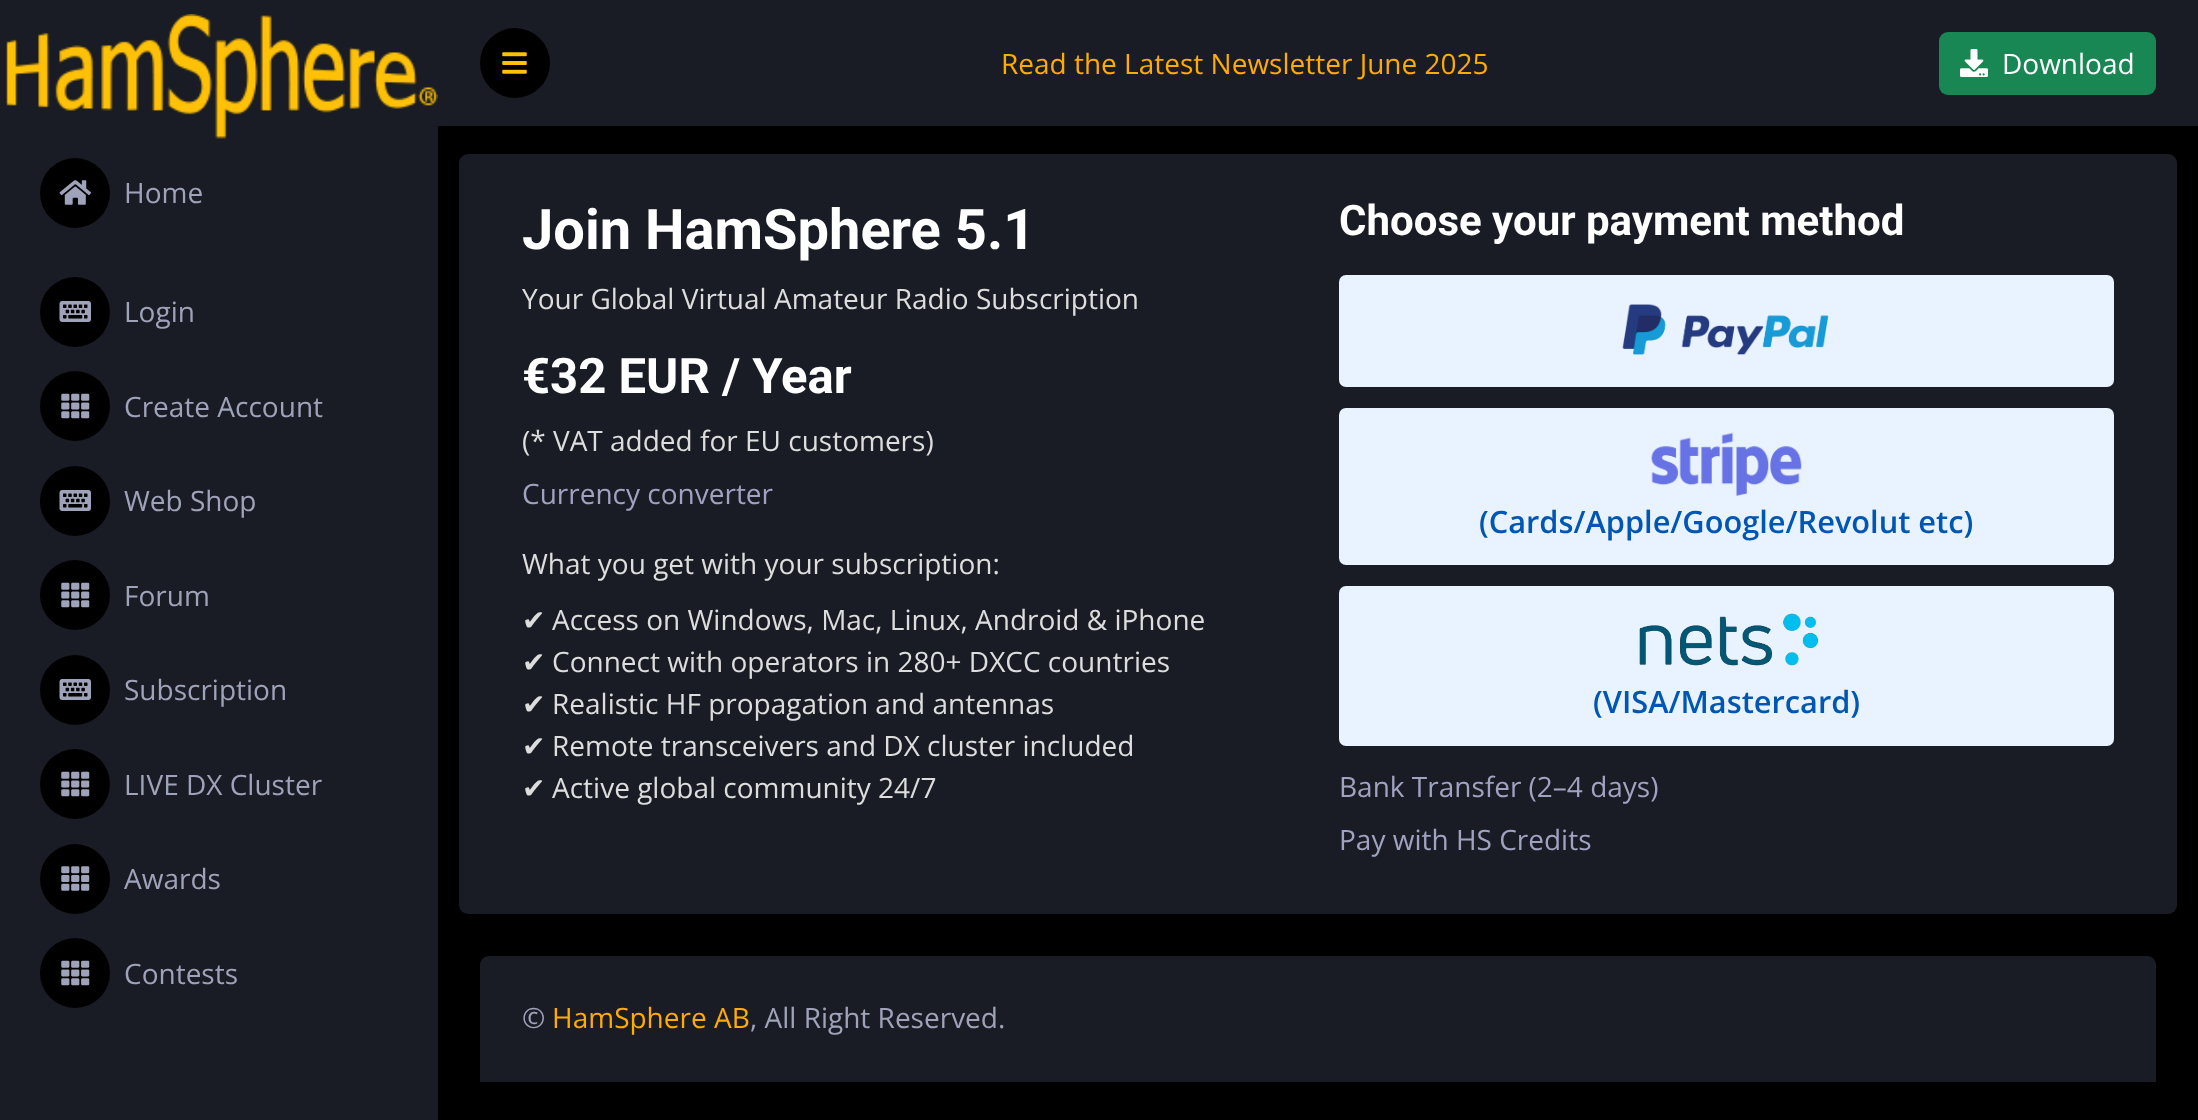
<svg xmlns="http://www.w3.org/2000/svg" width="2198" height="1120">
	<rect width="100%" height="100%" fill="#000000" />
	<rect x="0" y="0" width="438" height="1120" fill="#191C24" />
	<image x="6" y="14" width="432" height="125" href="assets/img1.png" />
	<circle cx="75" cy="193" r="35" fill="#000000" />
	<image x="59" y="180" width="32" height="25" href="assets/img2.png" />
	<text x="124" y="203" font-family="Open Sans" font-size="28" fill="#9FA3B9">Home</text>
	<circle cx="75" cy="312" r="35" fill="#000000" />
	<image x="59" y="301" width="32" height="21" href="assets/img3.png" />
	<text x="124" y="322" font-family="Open Sans" font-size="28" fill="#9FA3B9">Login</text>
	<circle cx="75" cy="406" r="35" fill="#000000" />
	<image x="61" y="393" width="29" height="26" href="assets/img4.png" />
	<text x="124" y="417" font-family="Open Sans" font-size="28" fill="#9FA3B9">Create Account</text>
	<circle cx="75" cy="501" r="35" fill="#000000" />
	<image x="59" y="490" width="32" height="21" href="assets/img3.png" />
	<text x="124" y="511" font-family="Open Sans" font-size="28" fill="#9FA3B9">Web Shop</text>
	<circle cx="75" cy="595" r="35" fill="#000000" />
	<image x="61" y="582" width="29" height="26" href="assets/img4.png" />
	<text x="124" y="606" font-family="Open Sans" font-size="28" fill="#9FA3B9">Forum</text>
	<circle cx="75" cy="690" r="35" fill="#000000" />
	<image x="59" y="679" width="32" height="21" href="assets/img3.png" />
	<text x="124" y="700" font-family="Open Sans" font-size="28" fill="#9FA3B9">Subscription</text>
	<circle cx="75" cy="784" r="35" fill="#000000" />
	<image x="61" y="771" width="29" height="26" href="assets/img4.png" />
	<text x="124" y="795" font-family="Open Sans" font-size="28" fill="#9FA3B9">LIVE DX Cluster</text>
	<circle cx="75" cy="879" r="35" fill="#000000" />
	<image x="61" y="866" width="29" height="25" href="assets/img5.png" />
	<text x="124" y="889" font-family="Open Sans" font-size="28" fill="#9FA3B9">Awards</text>
	<circle cx="75" cy="973" r="35" fill="#000000" />
	<image x="61" y="960" width="29" height="26" href="assets/img4.png" />
	<text x="124" y="984" font-family="Open Sans" font-size="28" fill="#9FA3B9">Contests</text>
	<rect x="438" y="0" width="1760" height="126" fill="#191C24" />
	<circle cx="515" cy="63" r="35" fill="#000000" />
	<image x="502" y="52" width="25" height="22" href="assets/img6.png" />
	<text x="1001" y="74" font-family="Open Sans" font-size="28" fill="#FFAB00">Read the Latest Newsletter June 2025</text>
	<rect x="1939" y="32" width="217" height="63" rx="9" fill="#198754" />
	<image x="1960" y="49" width="28" height="28" href="assets/img7.png" />
	<text x="2002" y="74" font-family="Open Sans" font-size="28" fill="#FFFFFF">Download</text>
	<rect x="459" y="154" width="1718" height="760" rx="9" fill="#191C24" />
	<text x="522" y="249" font-family="Roboto" font-size="56" font-weight="700" fill="#FFFFFF">Join HamSphere 5.1</text>
	<text x="522" y="309" font-family="Open Sans" font-size="28" fill="#DDDDDD">Your Global Virtual Amateur Radio Subscription</text>
	<text x="522" y="393" font-family="Roboto" font-size="49" font-weight="700" fill="#FFFFFF">€32 EUR / Year</text>
	<text x="522" y="451" font-family="Open Sans" font-size="28" fill="#DDDDDD">(* VAT added for EU customers)</text>
	<text x="522" y="504" font-family="Open Sans" font-size="28" fill="#A0A3C0">Currency converter</text>
	<text x="522" y="574" font-family="Open Sans" font-size="28" fill="#DDDDDD">What you get with your subscription:</text>
	<text x="522" y="630" font-family="DejaVu Sans" font-size="28" fill="#DDDDDD">✔</text>
	<text x="552" y="630" font-family="Open Sans" font-size="28" fill="#DDDDDD">Access on Windows, Mac, Linux, Android &amp; iPhone</text>
	<text x="522" y="672" font-family="DejaVu Sans" font-size="28" fill="#DDDDDD">✔</text>
	<text x="552" y="672" font-family="Open Sans" font-size="28" fill="#DDDDDD">Connect with operators in 280+ DXCC countries</text>
	<text x="522" y="714" font-family="DejaVu Sans" font-size="28" fill="#DDDDDD">✔</text>
	<text x="552" y="714" font-family="Open Sans" font-size="28" fill="#DDDDDD">Realistic HF propagation and antennas</text>
	<text x="522" y="756" font-family="DejaVu Sans" font-size="28" fill="#DDDDDD">✔</text>
	<text x="552" y="756" font-family="Open Sans" font-size="28" fill="#DDDDDD">Remote transceivers and DX cluster included</text>
	<text x="522" y="798" font-family="DejaVu Sans" font-size="28" fill="#DDDDDD">✔</text>
	<text x="552" y="798" font-family="Open Sans" font-size="28" fill="#DDDDDD">Active global community 24/7</text>
	<text x="1339" y="235" font-family="Roboto" font-size="42" font-weight="700" fill="#FFFFFF">Choose your payment method</text>
	<rect x="1339" y="275" width="775" height="112" rx="7" fill="#E9F2FF" />
	<image x="1622" y="304" width="207" height="51" href="assets/img8.png" />
	<rect x="1339" y="408" width="775" height="157" rx="7" fill="#E9F2FF" />
	<image x="1651" y="432" width="151" height="64" href="assets/img9.png" />
	<text x="1479" y="533" font-family="Open Sans" font-size="30.75" font-weight="600" fill="#0056B3">(Cards/Apple/Google/Revolut etc)</text>
	<rect x="1339" y="586" width="775" height="160" rx="7" fill="#E9F2FF" />
	<image x="1639" y="613" width="180" height="53" href="assets/img10.png" />
	<text x="1593" y="713" font-family="Open Sans" font-size="30.75" font-weight="600" fill="#0056B3">(VISA/Mastercard)</text>
	<g font-family="Open Sans" font-size="28" fill="#A0A3C0">
		<text x="1339" y="797">Bank Transfer (2–4 days)</text>
		<text x="1339" y="850">Pay with HS Credits</text>
	</g>
	<path d="M489 956H2147C2152 956 2156 960 2156 965V1082H480V965C480 960 484 956 489 956Z" fill="#191C24" />
	<text x="522" y="1028" font-family="Open Sans" font-size="28" fill="#9FA3B9">©</text>
	<text x="552" y="1028" font-family="Open Sans" font-size="28" fill="#FFAB00">HamSphere AB</text>
	<text x="750" y="1028" font-family="Open Sans" font-size="28" fill="#9FA3B9">, All Right Reserved.</text>
</svg>
